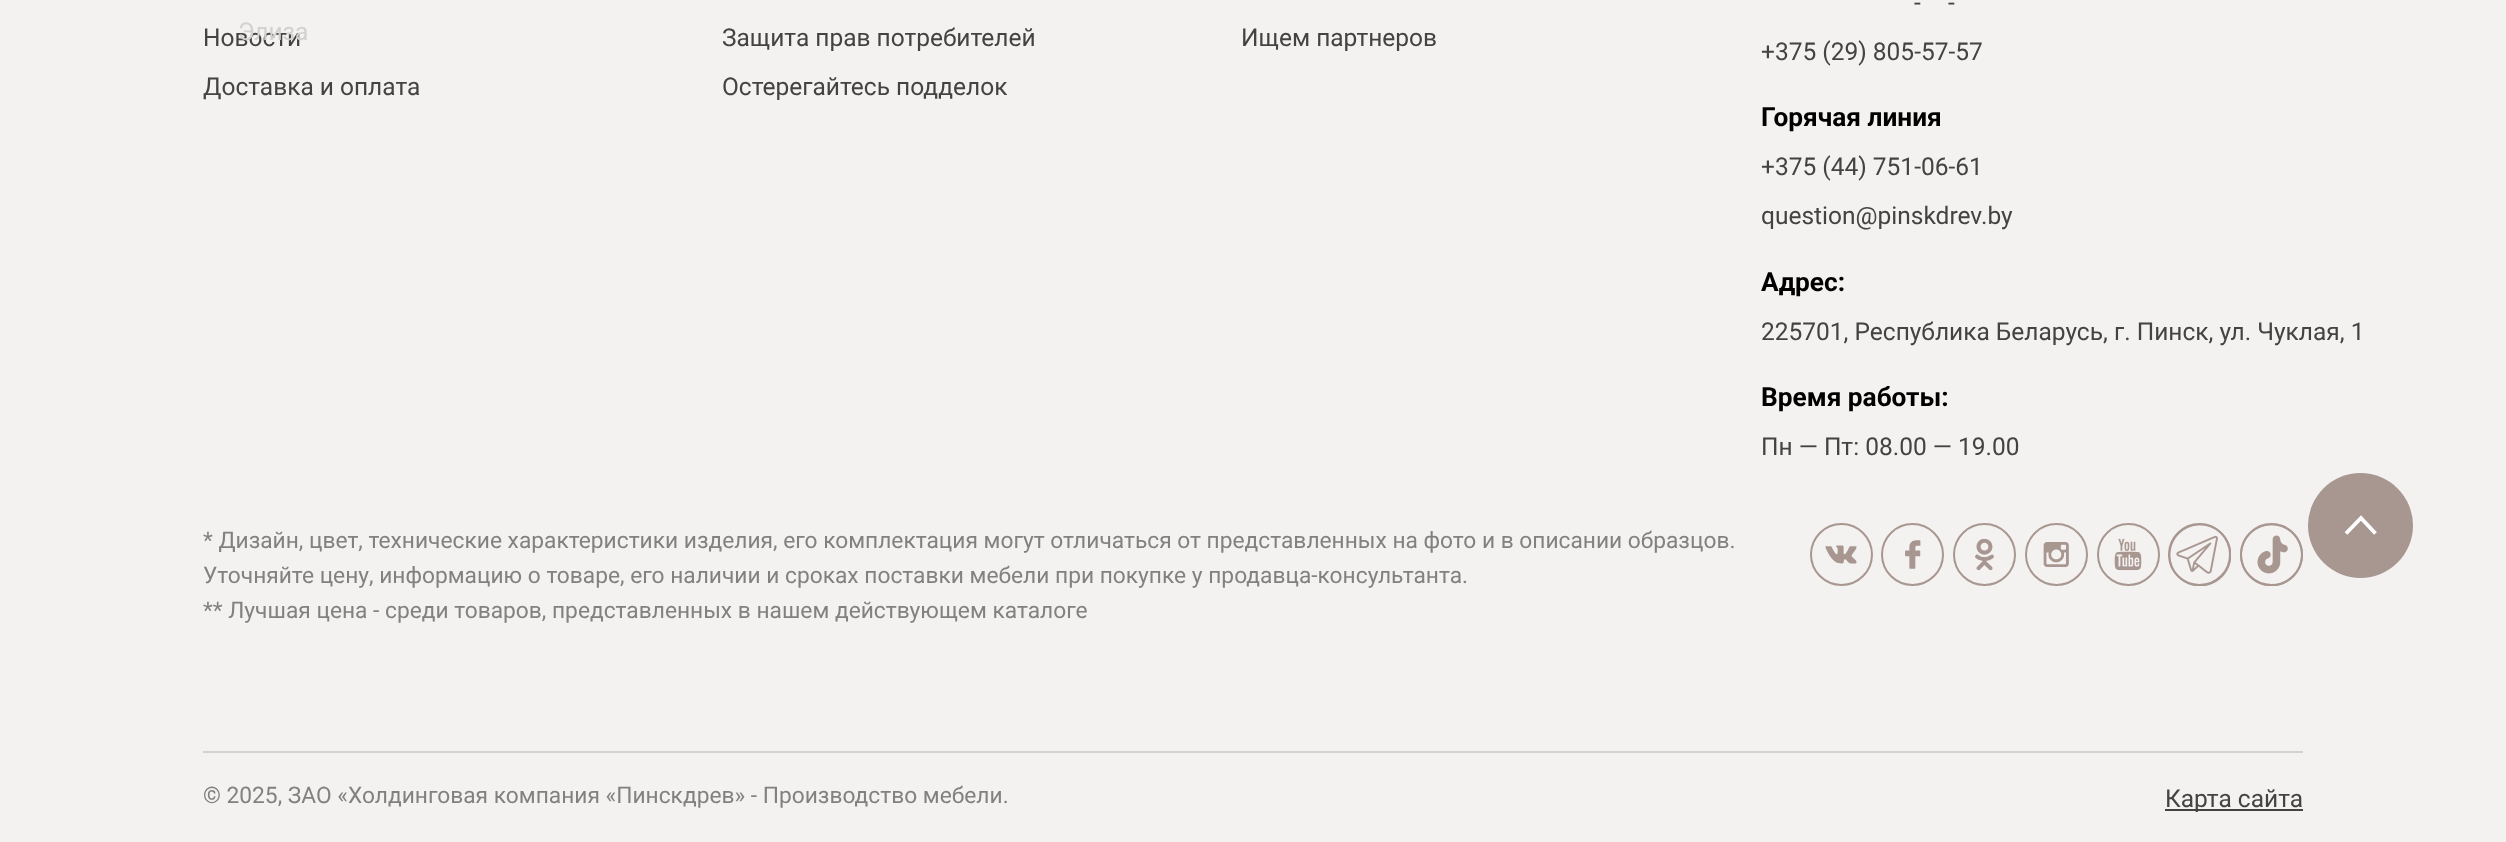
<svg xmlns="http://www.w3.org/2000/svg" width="2506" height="842">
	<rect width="100%" height="100%" fill="#F4F2F0" />
	<g font-family="Roboto" font-size="24.5" fill="#434343">
		<text x="203" y="46">Новости</text>
		<text x="203" y="95">Доставка и оплата</text>
		<text x="722" y="46">Защита прав потребителей</text>
		<text x="722" y="95">Остерегайтесь подделок</text>
		<text x="1241" y="46">Ищем партнеров</text>
		<text x="1914" y="11">-</text>
		<text x="1948" y="11">-</text>
		<text x="1761" y="60">+375 (29) 805-57-57</text>
	</g>
	<text x="1761" y="126" font-family="Roboto" font-size="26.25" font-weight="700" fill="#000000">Горячая линия</text>
	<g font-family="Roboto" font-size="24.5" fill="#434343">
		<text x="1761" y="175">+375 (44) 751-06-61</text>
		<text x="1761" y="224">question@pinskdrev.by</text>
	</g>
	<text x="1761" y="291" font-family="Roboto" font-size="26.25" font-weight="700" fill="#000000">Адрес:</text>
	<text x="1761" y="340" font-family="Roboto" font-size="24.5" fill="#434343">225701, Республика Беларусь, г. Пинск, ул. Чуклая, 1</text>
	<text x="1761" y="406" font-family="Roboto" font-size="26.25" font-weight="700" fill="#000000">Время работы:</text>
	<text x="1761" y="455" font-family="Roboto" font-size="24.5" fill="#434343">Пн — Пт: 08.00 — 19.00</text>
	<g font-family="Roboto" font-size="22.75" fill="#818181">
		<text x="203" y="548">* Дизайн, цвет, технические характеристики изделия, его комплектация могут отличаться от представленных на фото и в описании образцов.</text>
		<text x="203" y="583">Уточняйте цену, информацию о товаре, его наличии и сроках поставки мебели при покупке у продавца-консультанта.</text>
		<text x="203" y="618">** Лучшая цена - среди товаров, представленных в нашем действующем каталоге</text>
	</g>
	<circle cx="1841.5" cy="554.5" r="30.5" fill="none" stroke="#A89691" stroke-width="2" />
	<image x="1825" y="545" width="32" height="19" href="assets/img1.png" />
	<circle cx="1912.5" cy="554.5" r="30.5" fill="none" stroke="#A89691" stroke-width="2" />
	<image x="1905" y="540" width="16" height="29" href="assets/img2.png" />
	<circle cx="1984.5" cy="554.5" r="30.5" fill="none" stroke="#A89691" stroke-width="2" />
	<image x="1975" y="538" width="19" height="33" href="assets/img3.png" />
	<circle cx="2056.5" cy="554.5" r="30.5" fill="none" stroke="#A89691" stroke-width="2" />
	<image x="2043" y="542" width="26" height="25" href="assets/img4.png" />
	<circle cx="2128.5" cy="554.5" r="30.5" fill="none" stroke="#A89691" stroke-width="2" />
	<image x="2114" y="538" width="28" height="33" href="assets/img5.png" />
	<circle cx="2199.5" cy="554.5" r="30.5" fill="none" stroke="#A89691" stroke-width="2" />
	<image x="2168" y="523" width="63" height="63" href="assets/img6.png" />
	<circle cx="2271.5" cy="554.5" r="30.5" fill="none" stroke="#A89691" stroke-width="2" />
	<image x="2240" y="525" width="63" height="61" href="assets/img7.png" />
	<rect x="203" y="751" width="2100" height="2" fill="#D2D2D2" />
	<text x="203" y="803" font-family="Roboto" font-size="22.75" fill="#818181">© 2025, ЗАО «Холдинговая компания «Пинскдрев» - Производство мебели.</text>
	<rect x="2165" y="809" width="138" height="2" fill="#434343" />
	<text x="2165" y="807" font-family="Roboto" font-size="24.5" fill="#434343">Карта сайта</text>
	<text x="238" y="40" font-family="Roboto" font-size="24.5" fill="#D3D1D0">Элиза</text>
	<circle cx="2360.5" cy="525.5" r="52.5" fill="#A89691" />
	<path d="M2346 533.5L2361 518L2375.5 533.5" fill="none" stroke="#FFFFFF" stroke-width="3.9" />
</svg>
